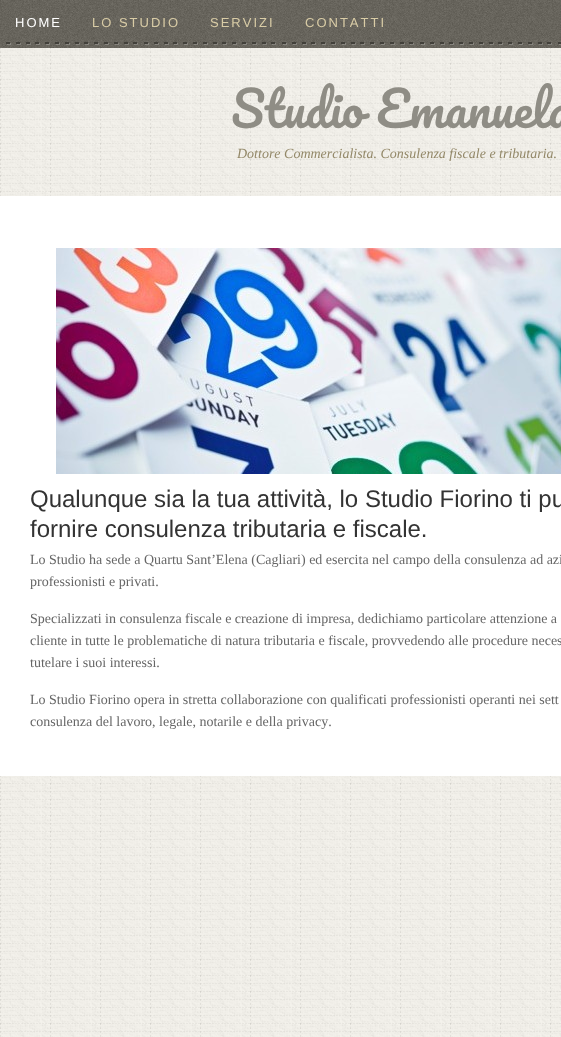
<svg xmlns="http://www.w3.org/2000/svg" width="561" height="1037">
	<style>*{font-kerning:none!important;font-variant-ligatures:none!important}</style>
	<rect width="100%" height="100%" fill="#FFFFFF" />
	<image x="0" y="48" width="561" height="989" href="assets/img1.png" />
	<image x="0" y="0" width="561" height="48" href="assets/img2.png" />
	<text x="15" y="27" font-family="Liberation Sans" font-size="13" letter-spacing="2" fill="#FFFFFF">HOME</text>
	<g font-family="Liberation Sans" font-size="13" letter-spacing="2" fill="#D9CCA6">
		<text x="92" y="27">LO STUDIO</text>
		<text x="210" y="27">SERVIZI</text>
		<text x="305" y="27">CONTATTI</text>
	</g>
	<text x="231" y="128" font-family="Pacifico" font-size="48" fill="#8F8D85">Studio Emanuela</text>
	<text x="237" y="158" font-family="Liberation Serif" font-size="14" font-style="italic" fill="#938868">Dottore Commercialista. Consulenza fiscale e tributaria.</text>
	<rect x="0" y="196" width="561" height="580" fill="#FFFFFF" />
	<image x="56" y="248" width="505" height="226" href="assets/img3.png" />
	<g font-family="Liberation Sans" font-size="24" fill="#333333">
		<text x="30" y="507">Qualunque sia la tua attività, lo Studio Fiorino ti pu</text>
		<text x="30" y="537">fornire consulenza tributaria e fiscale.</text>
	</g>
	<g font-family="Liberation Serif" font-size="14" fill="#666666">
		<text x="30" y="564">Lo Studio ha sede a Quartu Sant’Elena (Cagliari) ed esercita nel campo della consulenza ad azi</text>
		<text x="30" y="586">professionisti e privati.</text>
		<text x="30" y="623">Specializzati in consulenza fiscale e creazione di impresa, dedichiamo particolare attenzione a</text>
		<text x="30" y="645">cliente in tutte le problematiche di natura tributaria e fiscale, provvedendo alle procedure neces</text>
		<text x="30" y="667">tutelare i suoi interessi.</text>
		<text x="30" y="704">Lo Studio Fiorino opera in stretta collaborazione con qualificati professionisti operanti nei sett</text>
		<text x="30" y="726">consulenza del lavoro, legale, notarile e della privacy.</text>
	</g>
</svg>
